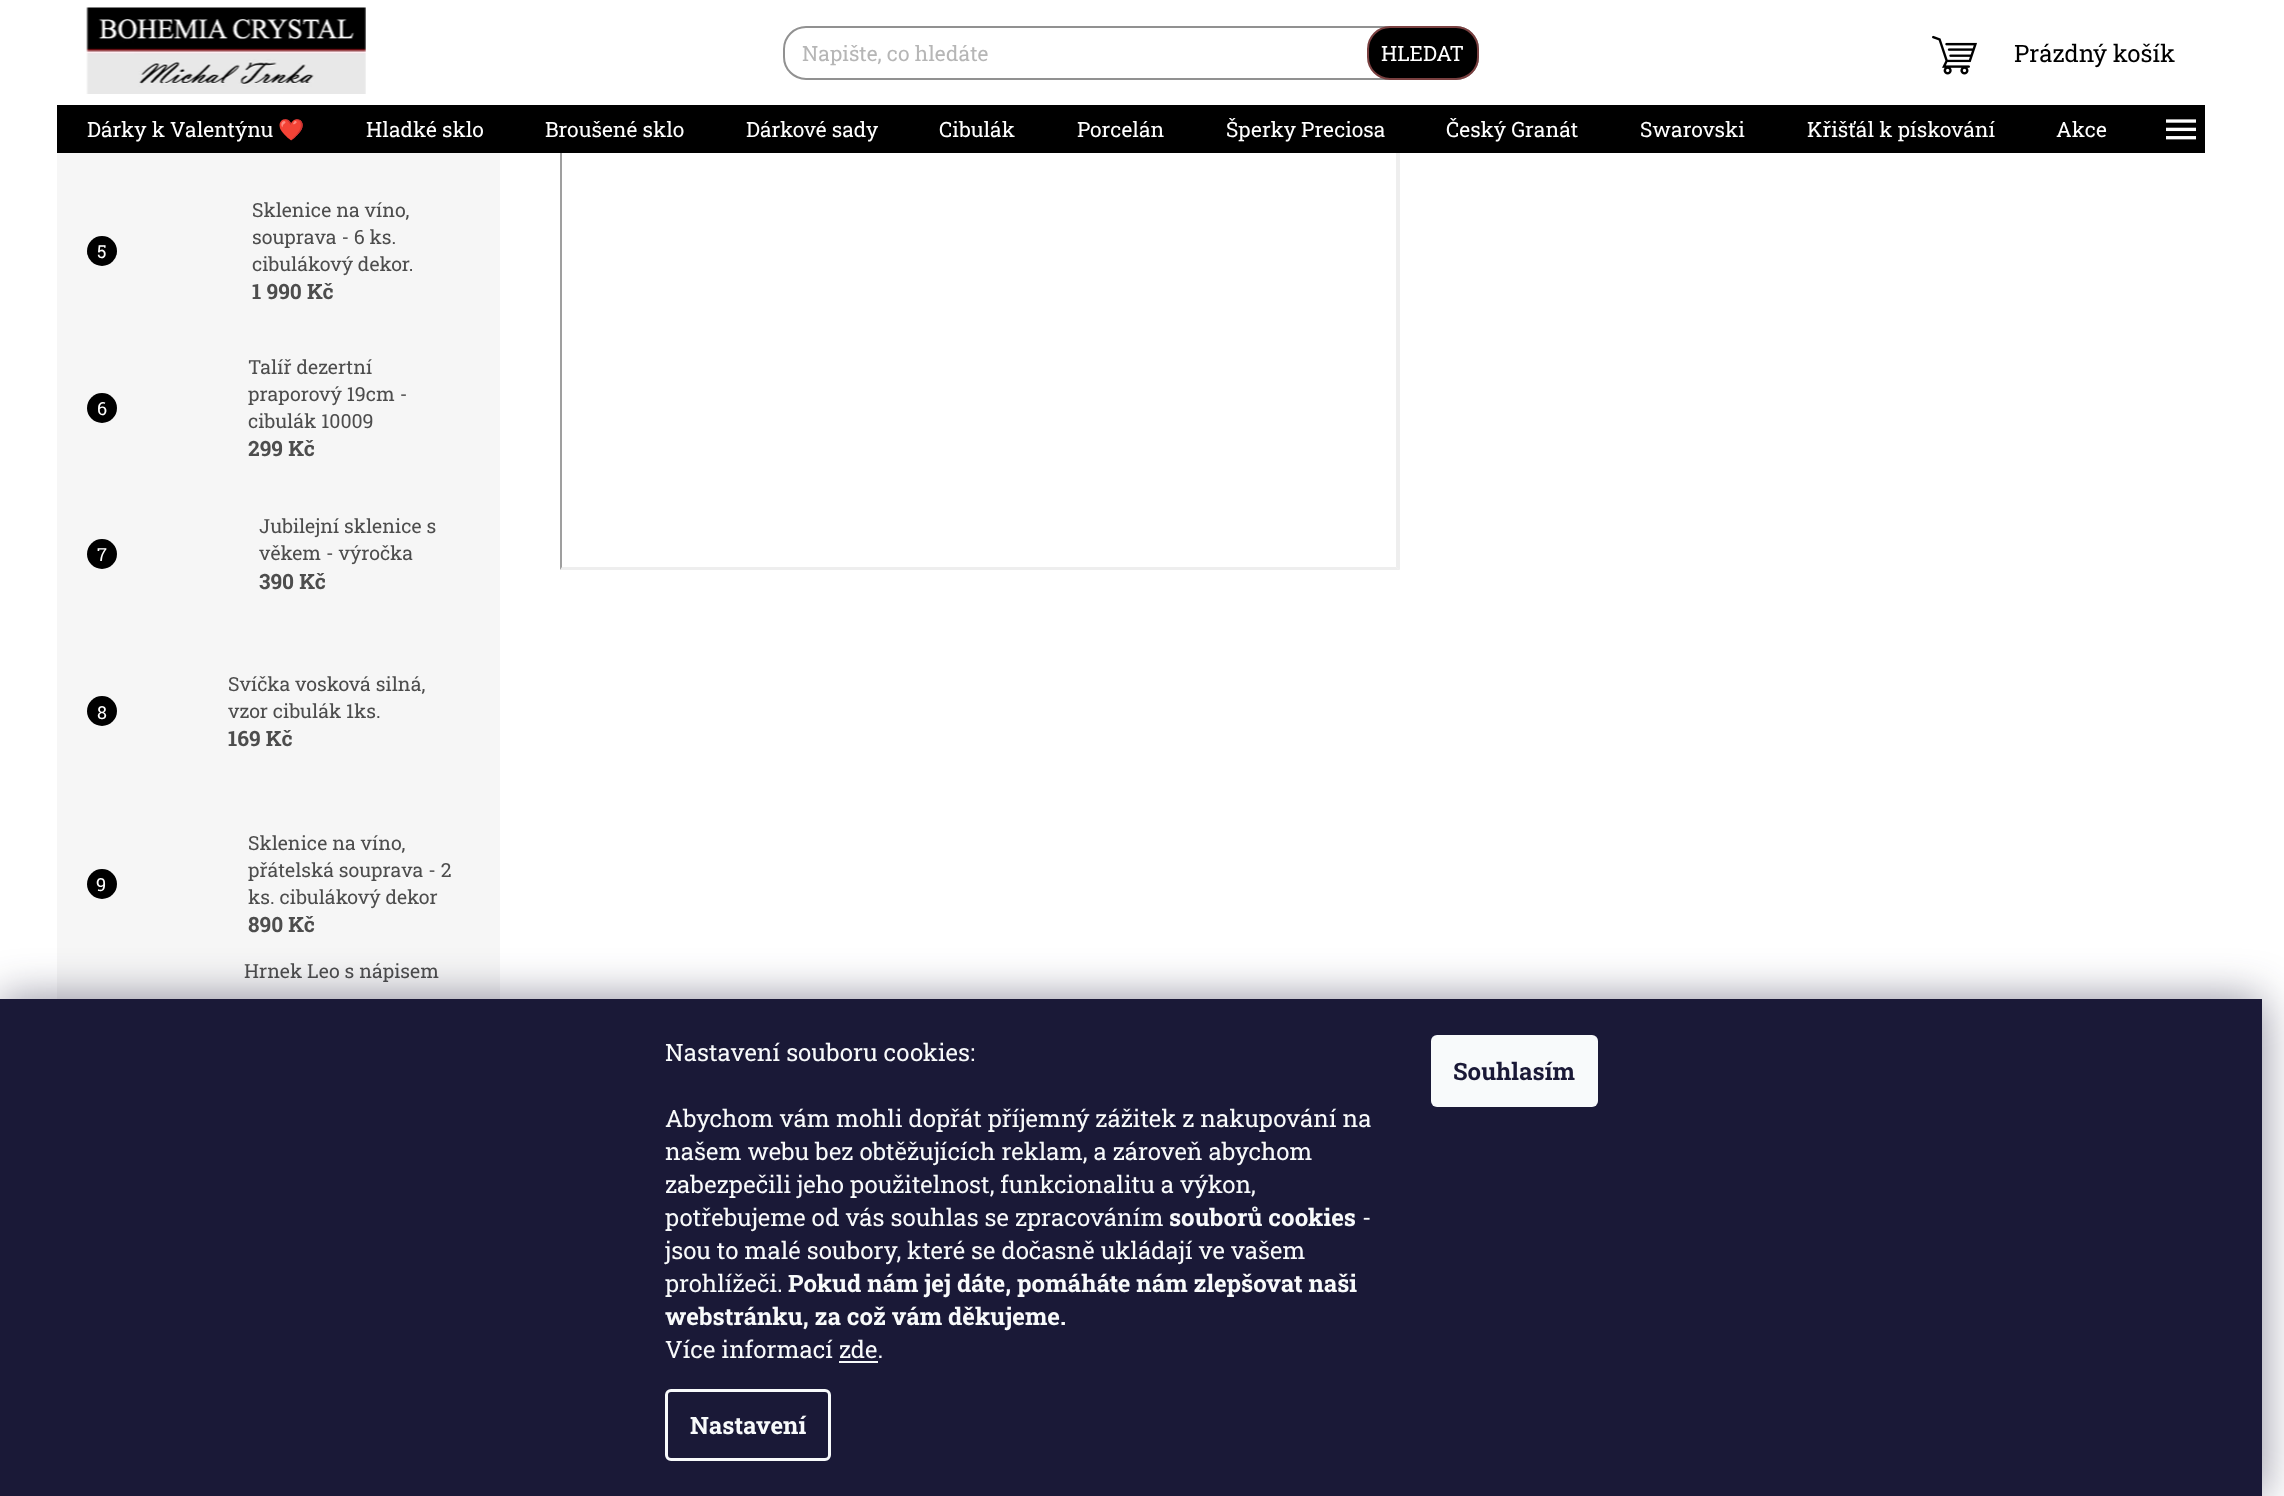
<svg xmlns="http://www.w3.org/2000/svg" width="2284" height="1496">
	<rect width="100%" height="100%" fill="#FFFFFF" />
	<path d="M1400 99V570L1396 567V102Z" fill="#EEEEEE" />
	<path d="M1400 570H560L562 567H1396Z" fill="#EEEEEE" />
	<path d="M560 570V99L562 102V567Z" fill="#9F9F9F" />
	<rect x="560" y="99" width="840" height="54" fill="#FFFFFF" />
	<image x="86" y="7" width="280" height="87" href="assets/img1.png" />
	<rect x="784" y="27" width="694" height="52" rx="22" fill="none" stroke="#919191" stroke-width="2" />
	<text x="802" y="61" font-family="Roboto Slab" font-size="21" fill="#B6B6B6">Napište, co hledáte</text>
	<rect x="1368" y="27" width="110" height="52" rx="22" fill="#000000" stroke="#7A4040" stroke-width="2" />
	<text x="1381" y="61" font-family="Roboto Slab" font-size="21" fill="#FFFFFF">HLEDAT</text>
	<image x="1932" y="35" width="45" height="40" href="assets/img2.png" />
	<text x="2014" y="62" font-family="Roboto Slab" font-size="24" fill="#000000">Prázdný košík</text>
	<rect x="57" y="105" width="2148" height="48" fill="#000000" />
	<text x="87" y="137" font-family="Roboto Slab" font-size="21" fill="#FFFFFF">Dárky k Valentýnu</text>
	<text x="278" y="137" font-family="Noto Color Emoji" font-size="21" fill="#FFFFFF">❤️</text>
	<g font-family="Roboto Slab" font-size="21" fill="#FFFFFF">
		<text x="366" y="137">Hladké sklo</text>
		<text x="545" y="137">Broušené sklo</text>
		<text x="746" y="137">Dárkové sady</text>
		<text x="939" y="137">Cibulák</text>
		<text x="1077" y="137">Porcelán</text>
		<text x="1226" y="137">Šperky Preciosa</text>
		<text x="1446" y="137">Český Granát</text>
		<text x="1640" y="137">Swarovski</text>
		<text x="1807" y="137">Křišťál k pískování</text>
		<text x="2056" y="137">Akce</text>
	</g>
	<image x="2166" y="119" width="30" height="21" href="assets/img3.png" />
	<rect x="57" y="153" width="443" height="846" fill="#F6F6F6" />
	<circle cx="102" cy="251" r="15" fill="#000000" />
	<text x="97" y="258" font-family="Roboto Slab" font-size="18" fill="#FFFFFF">5</text>
	<g font-family="Roboto Slab" font-size="19.5" fill="#4D4D4D">
		<text x="252" y="217">Sklenice na víno,</text>
		<text x="252" y="244">souprava - 6 ks.</text>
		<text x="252" y="271">cibulákový dekor.</text>
	</g>
	<text x="252" y="299" font-family="Roboto Slab" font-size="21" font-weight="700" fill="#4D4D4D">1 990 Kč</text>
	<circle cx="102" cy="408" r="15" fill="#000000" />
	<text x="97" y="415" font-family="Roboto Slab" font-size="18" fill="#FFFFFF">6</text>
	<g font-family="Roboto Slab" font-size="19.5" fill="#4D4D4D">
		<text x="248" y="374">Talíř dezertní</text>
		<text x="248" y="401">praporový 19cm -</text>
		<text x="248" y="428">cibulák 10009</text>
	</g>
	<text x="248" y="456" font-family="Roboto Slab" font-size="21" font-weight="700" fill="#4D4D4D">299 Kč</text>
	<circle cx="102" cy="554" r="15" fill="#000000" />
	<text x="97" y="561" font-family="Roboto Slab" font-size="18" fill="#FFFFFF">7</text>
	<g font-family="Roboto Slab" font-size="19.5" fill="#4D4D4D">
		<text x="259" y="533">Jubilejní sklenice s</text>
		<text x="259" y="560">věkem - výročka</text>
	</g>
	<text x="259" y="589" font-family="Roboto Slab" font-size="21" font-weight="700" fill="#4D4D4D">390 Kč</text>
	<circle cx="102" cy="711" r="15" fill="#000000" />
	<text x="97" y="719" font-family="Roboto Slab" font-size="18" fill="#FFFFFF">8</text>
	<g font-family="Roboto Slab" font-size="19.5" fill="#4D4D4D">
		<text x="228" y="691">Svíčka vosková silná,</text>
		<text x="228" y="718">vzor cibulák 1ks.</text>
	</g>
	<text x="228" y="746" font-family="Roboto Slab" font-size="21" font-weight="700" fill="#4D4D4D">169 Kč</text>
	<circle cx="102" cy="884" r="15" fill="#000000" />
	<text x="96" y="891" font-family="Roboto Slab" font-size="18" fill="#FFFFFF">9</text>
	<g font-family="Roboto Slab" font-size="19.5" fill="#4D4D4D">
		<text x="248" y="850">Sklenice na víno,</text>
		<text x="248" y="877">přátelská souprava - 2</text>
		<text x="248" y="904">ks. cibulákový dekor</text>
	</g>
	<text x="248" y="932" font-family="Roboto Slab" font-size="21" font-weight="700" fill="#4D4D4D">890 Kč</text>
	<text x="244" y="978" font-family="Roboto Slab" font-size="19.5" fill="#4D4D4D">Hrnek Leo s nápisem</text>
	<rect x="0" y="999" width="2262" height="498" fill="#1B1939" fill-opacity="0.5" filter="blur(22.5px)" />
	<rect x="0" y="999" width="2262" height="497" fill="#1A1937" />
	<g font-family="Roboto Slab" font-size="24" fill="#F8FAFB">
		<text x="665" y="1061">Nastavení souboru cookies:</text>
		<text x="665" y="1127">Abychom vám mohli dopřát příjemný zážitek z nakupování na</text>
		<text x="665" y="1160">našem webu bez obtěžujících reklam, a zároveň abychom</text>
		<text x="665" y="1193">zabezpečili jeho použitelnost, funkcionalitu a výkon,</text>
		<text x="665" y="1226">potřebujeme od vás souhlas se zpracováním</text>
	</g>
	<text x="1169" y="1226" font-family="Roboto Slab" font-size="24" font-weight="700" fill="#F8FAFB">souborů cookies</text>
	<g font-family="Roboto Slab" font-size="24" fill="#F8FAFB">
		<text x="1362" y="1226">-</text>
		<text x="665" y="1259">jsou to malé soubory, které se dočasně ukládají ve vašem</text>
		<text x="665" y="1292">prohlížeči.</text>
	</g>
	<g font-family="Roboto Slab" font-size="24" font-weight="700" fill="#F8FAFB">
		<text x="788" y="1292">Pokud nám jej dáte, pomáháte nám zlepšovat naši</text>
		<text x="665" y="1325">webstránku, za což vám děkujeme.</text>
	</g>
	<text x="665" y="1358" font-family="Roboto Slab" font-size="24" fill="#F8FAFB">Více informací zde.</text>
	<rect x="839" y="1361" width="39" height="2" fill="#F8FAFB" />
	<rect x="666.5" y="1390.5" width="163" height="69" rx="4.5" fill="none" stroke="#F8FAFB" stroke-width="3" />
	<text x="690" y="1434" font-family="Roboto Slab" font-size="24" font-weight="700" fill="#F8FAFB">Nastavení</text>
	<rect x="1431" y="1035" width="167" height="72" rx="6" fill="#F8FAFB" />
	<text x="1453" y="1080" font-family="Roboto Slab" font-size="24" font-weight="700" fill="#1A1937">Souhlasím</text>
</svg>
